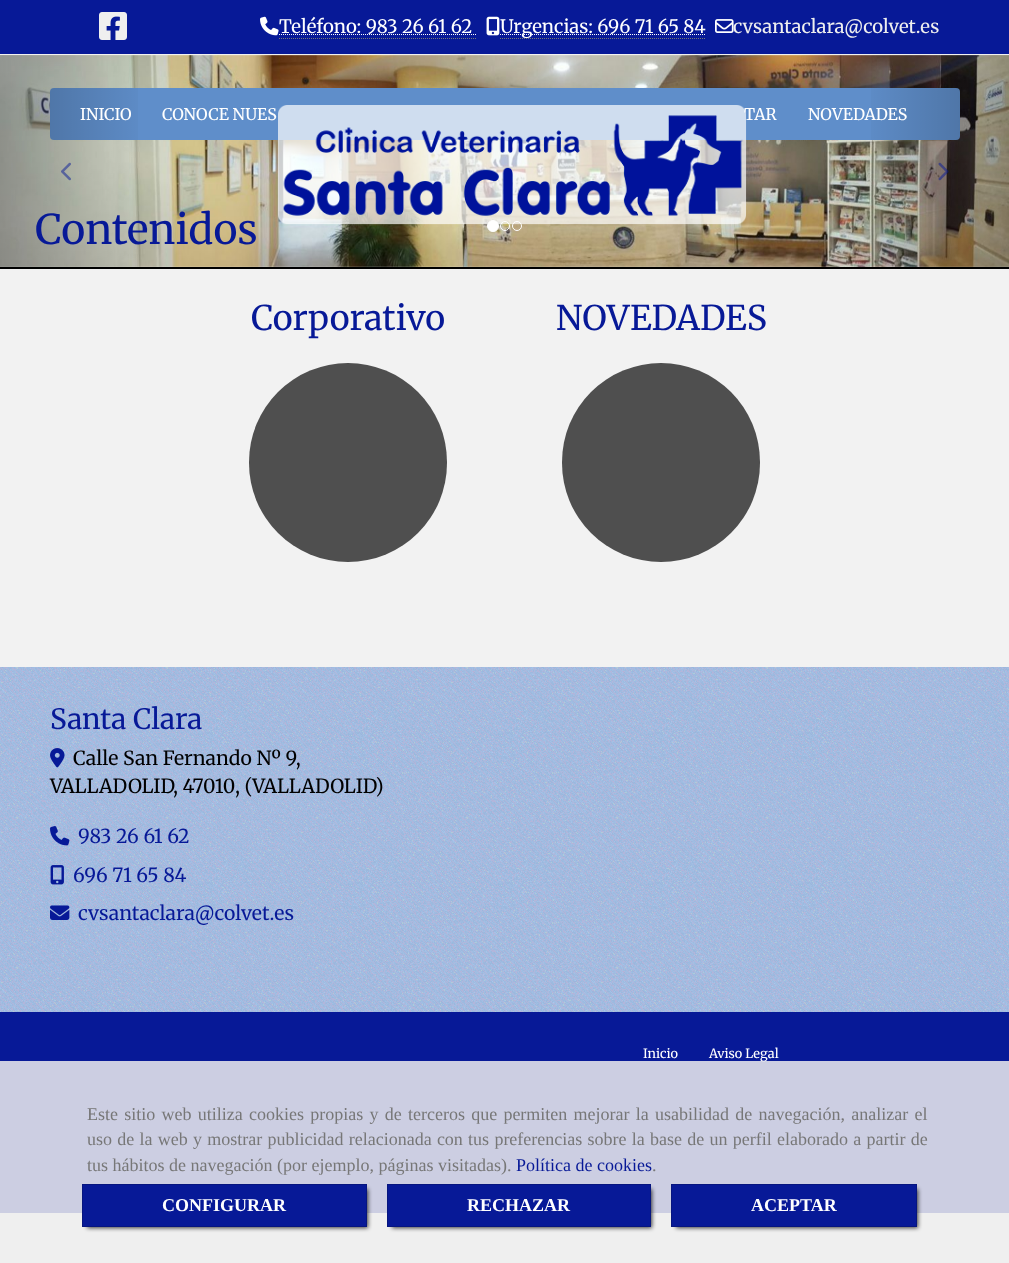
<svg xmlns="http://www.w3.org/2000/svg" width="1009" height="1263">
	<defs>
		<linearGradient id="g1" gradientUnits="userSpaceOnUse" x1="0" y1="162" x2="151" y2="162"><stop offset="0" stop-color="#000000" stop-opacity="0.25" /><stop offset="1" stop-color="#000000" stop-opacity="0" /></linearGradient>
		<linearGradient id="g2" gradientUnits="userSpaceOnUse" x1="858" y1="162" x2="1009" y2="162"><stop offset="0" stop-color="#000000" stop-opacity="0" /><stop offset="1" stop-color="#000000" stop-opacity="0.25" /></linearGradient>
	</defs>
	<rect width="100%" height="100%" fill="#F2F2F2" />
	<rect x="0" y="0" width="1009" height="54" fill="#071997" />
	<image x="99" y="12" width="28" height="28" href="assets/img1.png" />
	<image x="260" y="16" width="19" height="20" href="assets/img2.png" />
	<text x="279" y="33" font-family="Merriweather" font-size="18.5" font-weight="300" fill="#FFFFFF">Teléfono: 983 26 61 62</text>
	<path d="M279 38.5H477" fill="none" stroke="#777777" stroke-dasharray="1 1" />
	<path d="M279 34.5H477" fill="none" stroke="#FFFFFF" stroke-dasharray="1 1" />
	<image x="486" y="16" width="14" height="20" href="assets/img3.png" />
	<path d="M500 34.5H706" fill="none" stroke="#FFFFFF" stroke-dasharray="1 1" />
	<text x="500" y="33" font-family="Merriweather" font-size="18.5" font-weight="300" fill="#FFFFFF">Urgencias: 696 71 65 84</text>
	<path d="M500 38.5H706" fill="none" stroke="#777777" stroke-dasharray="1 1" />
	<image x="715" y="19" width="19" height="14" href="assets/img4.png" />
	<text x="733" y="33" font-family="Merriweather" font-size="18.5" font-weight="300" fill="#EFEFEF">cvsantaclara@colvet.es</text>
	<rect x="0" y="267" width="1009" height="2" fill="#000000" />
	<image x="0" y="55" width="1009" height="212" href="assets/img5.png" />
	<rect x="50" y="88" width="910" height="52" rx="4" fill="#5F8ECA" />
	<rect x="0" y="55" width="138" height="212" fill="url(#g1)" />
	<image x="61" y="162" width="10" height="19" href="assets/img6.png" />
	<circle cx="493" cy="226" r="5.5" fill="#FFFFFF" stroke="#FFFFFF" />
	<circle cx="505" cy="226" r="4.5" fill="none" stroke="#FFFFFF" />
	<circle cx="517" cy="226" r="4.5" fill="none" stroke="#FFFFFF" />
	<rect x="871" y="55" width="138" height="212" fill="url(#g2)" />
	<image x="938" y="162" width="11" height="19" href="assets/img7.png" />
	<text x="744" y="120" font-family="Merriweather" font-size="16" font-weight="300" fill="#FFFFFF">TAR</text>
	<image x="278" y="105" width="469" height="120" href="assets/img8.png" />
	<g font-family="Merriweather" font-size="16" font-weight="300" fill="#FFFFFF">
		<text x="80" y="120">INICIO</text>
		<text x="162" y="120">CONOCE NUES</text>
		<text x="808" y="120">NOVEDADES</text>
	</g>
	<text x="35" y="244" font-family="Merriweather" font-size="41" font-weight="300" fill="#071997">Contenidos</text>
	<text x="251" y="330" font-family="Merriweather" font-size="34" font-weight="300" fill="#071997">Corporativo</text>
	<rect x="249" y="363" width="198" height="199" rx="99" fill="#4F4F4F" />
	<text x="556" y="330" font-family="Merriweather" font-size="34" font-weight="300" fill="#071997">NOVEDADES</text>
	<rect x="562" y="363" width="198" height="199" rx="99" fill="#4F4F4F" />
	<image x="0" y="667" width="1009" height="345" href="assets/img9.png" />
	<text x="50" y="729" font-family="Merriweather" font-size="28" font-weight="300" fill="#071997">Santa Clara</text>
	<image x="50" y="748" width="15" height="20" href="assets/img10.png" />
	<g font-family="Merriweather" font-size="19.4" font-weight="300" fill="#000000">
		<text x="73" y="765">Calle San Fernando Nº 9,</text>
		<text x="50" y="793">VALLADOLID</text>
		<text x="173" y="793">, 47010</text>
		<text x="235" y="793">, (VALLADOLID)</text>
	</g>
	<image x="50" y="826" width="20" height="20" href="assets/img11.png" />
	<text x="78" y="843" font-family="Merriweather" font-size="19.4" font-weight="300" fill="#071997">983 26 61 62</text>
	<image x="50" y="865" width="14" height="20" href="assets/img12.png" />
	<text x="73" y="882" font-family="Merriweather" font-size="19.4" font-weight="300" fill="#071997">696 71 65 84</text>
	<image x="50" y="905" width="20" height="15" href="assets/img13.png" />
	<text x="78" y="920" font-family="Merriweather" font-size="19.4" font-weight="300" fill="#071997">cvsantaclara@colvet.es</text>
	<rect x="0" y="1012" width="1009" height="201" fill="#071997" />
	<g font-family="Merriweather" font-size="12.75" font-weight="300" fill="#FFFFFF">
		<text x="643" y="1058">Inicio</text>
		<text x="709" y="1058">Aviso Legal</text>
	</g>
	<rect x="0" y="1061" width="1009" height="202" fill="#EEEEEE" fill-opacity="0.85" />
	<g font-family="Liberation Serif" font-size="18" fill="#777777">
		<text x="87" y="1120" word-spacing="1.75">Este sitio web utiliza cookies propias y de terceros que permiten mejorar la usabilidad de navegación, analizar el</text>
		<text x="87" y="1145" word-spacing="0.75">uso de la web y mostrar publicidad relacionada con tus preferencias sobre la base de un perfil elaborado a partir de</text>
		<text x="87" y="1171">tus hábitos de navegación (por ejemplo, páginas visitadas).</text>
	</g>
	<text x="516" y="1171" font-family="Liberation Serif" font-size="18" fill="#071997">Política de cookies</text>
	<text x="652" y="1171" font-family="Liberation Serif" font-size="18" fill="#777777">.</text>
	<rect x="87" y="1189" width="281" height="39" fill="#000000" fill-opacity="0.75" filter="blur(2px)" />
	<rect x="82.5" y="1184.5" width="284" height="42" fill="#071997" stroke="#06157F" />
	<text x="162" y="1211" font-family="Liberation Serif" font-size="18" font-weight="700" fill="#FFFFFF">CONFIGURAR</text>
	<rect x="392" y="1189" width="260" height="39" fill="#000000" fill-opacity="0.75" filter="blur(2px)" />
	<rect x="387.5" y="1184.5" width="263" height="42" fill="#071997" stroke="#06157F" />
	<text x="467" y="1211" font-family="Liberation Serif" font-size="18" font-weight="700" fill="#FFFFFF">RECHAZAR</text>
	<rect x="676" y="1189" width="242" height="39" fill="#000000" fill-opacity="0.75" filter="blur(2px)" />
	<rect x="671.5" y="1184.5" width="245" height="42" fill="#071997" stroke="#06157F" />
	<text x="751" y="1211" font-family="Liberation Serif" font-size="18" font-weight="700" fill="#FFFFFF">ACEPTAR</text>
</svg>
